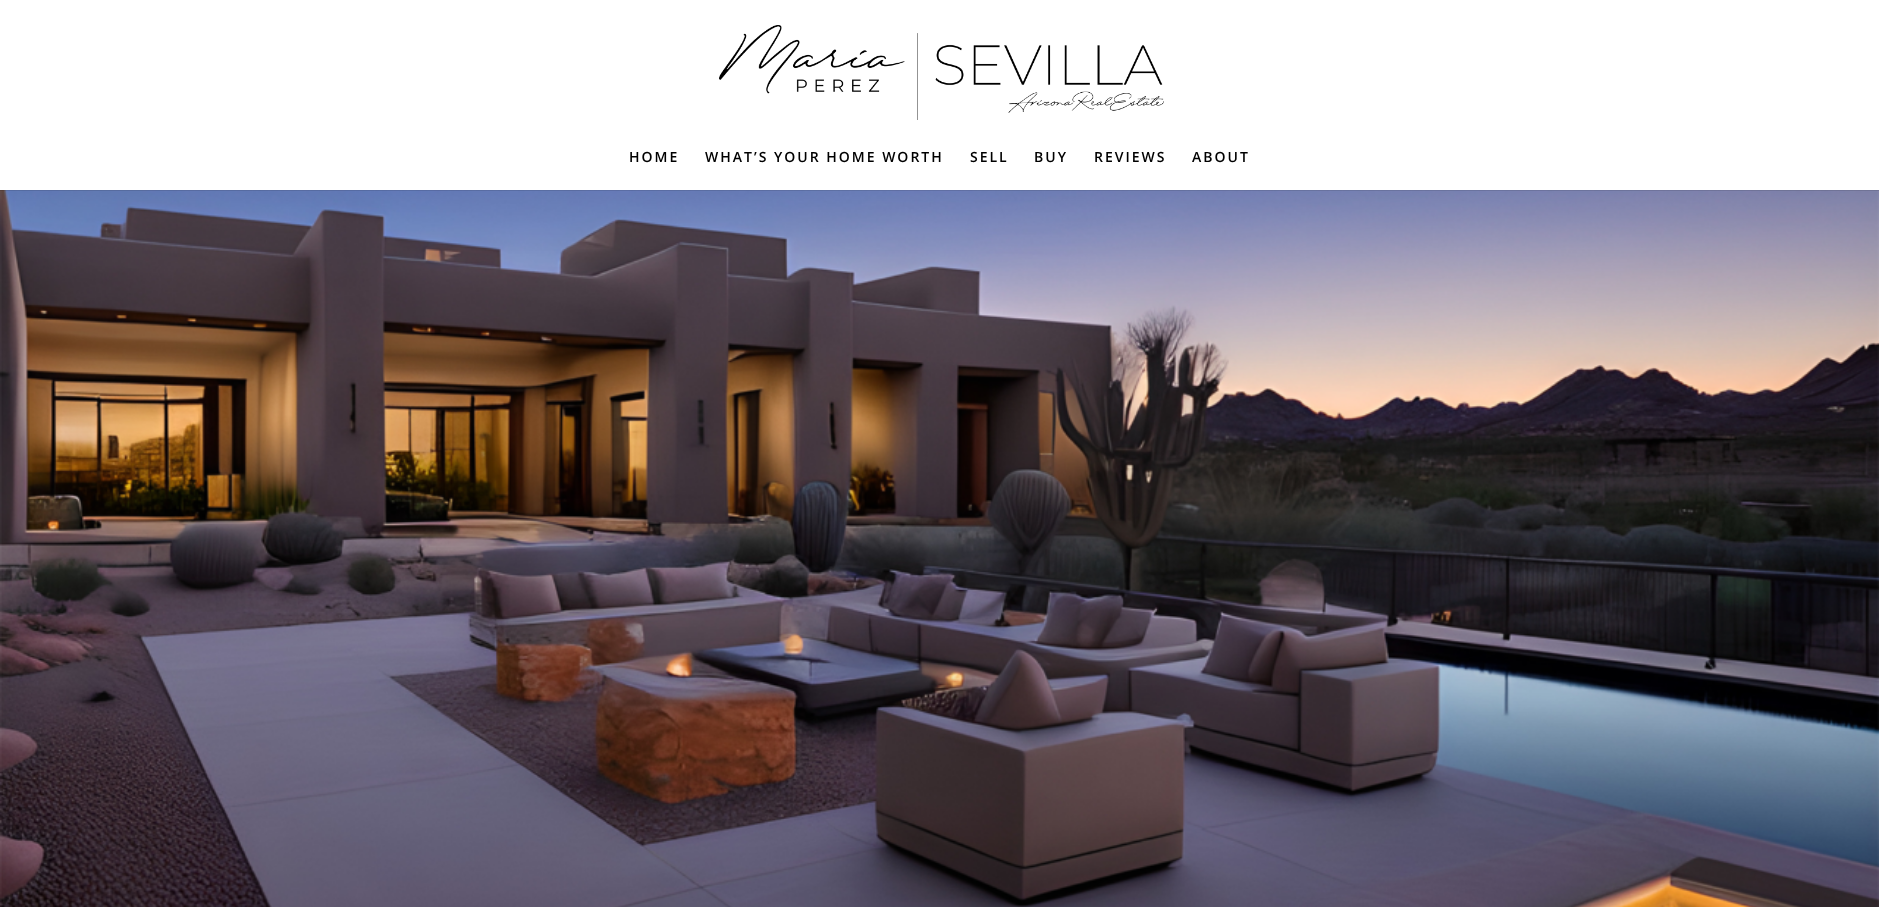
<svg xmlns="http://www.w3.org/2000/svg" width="1879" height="907">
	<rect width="100%" height="100%" fill="#FFFFFF" />
	<image x="0" y="190" width="1879" height="717" href="assets/img2.png" />
	<rect x="0" y="190" width="1879" height="1" fill="#000000" fill-opacity="0.1" />
	<image x="719" y="25" width="445" height="95" href="assets/img1.png" />
	<g font-family="Open Sans" font-size="14" font-weight="600" letter-spacing="2" fill="#000000">
		<text x="629" y="162">HOME</text>
		<text x="705" y="162">WHAT’S YOUR HOME WORTH</text>
		<text x="970" y="162">SELL</text>
		<text x="1034" y="162">BUY</text>
		<text x="1094" y="162">REVIEWS</text>
		<text x="1192" y="162">ABOUT</text>
	</g>
</svg>
